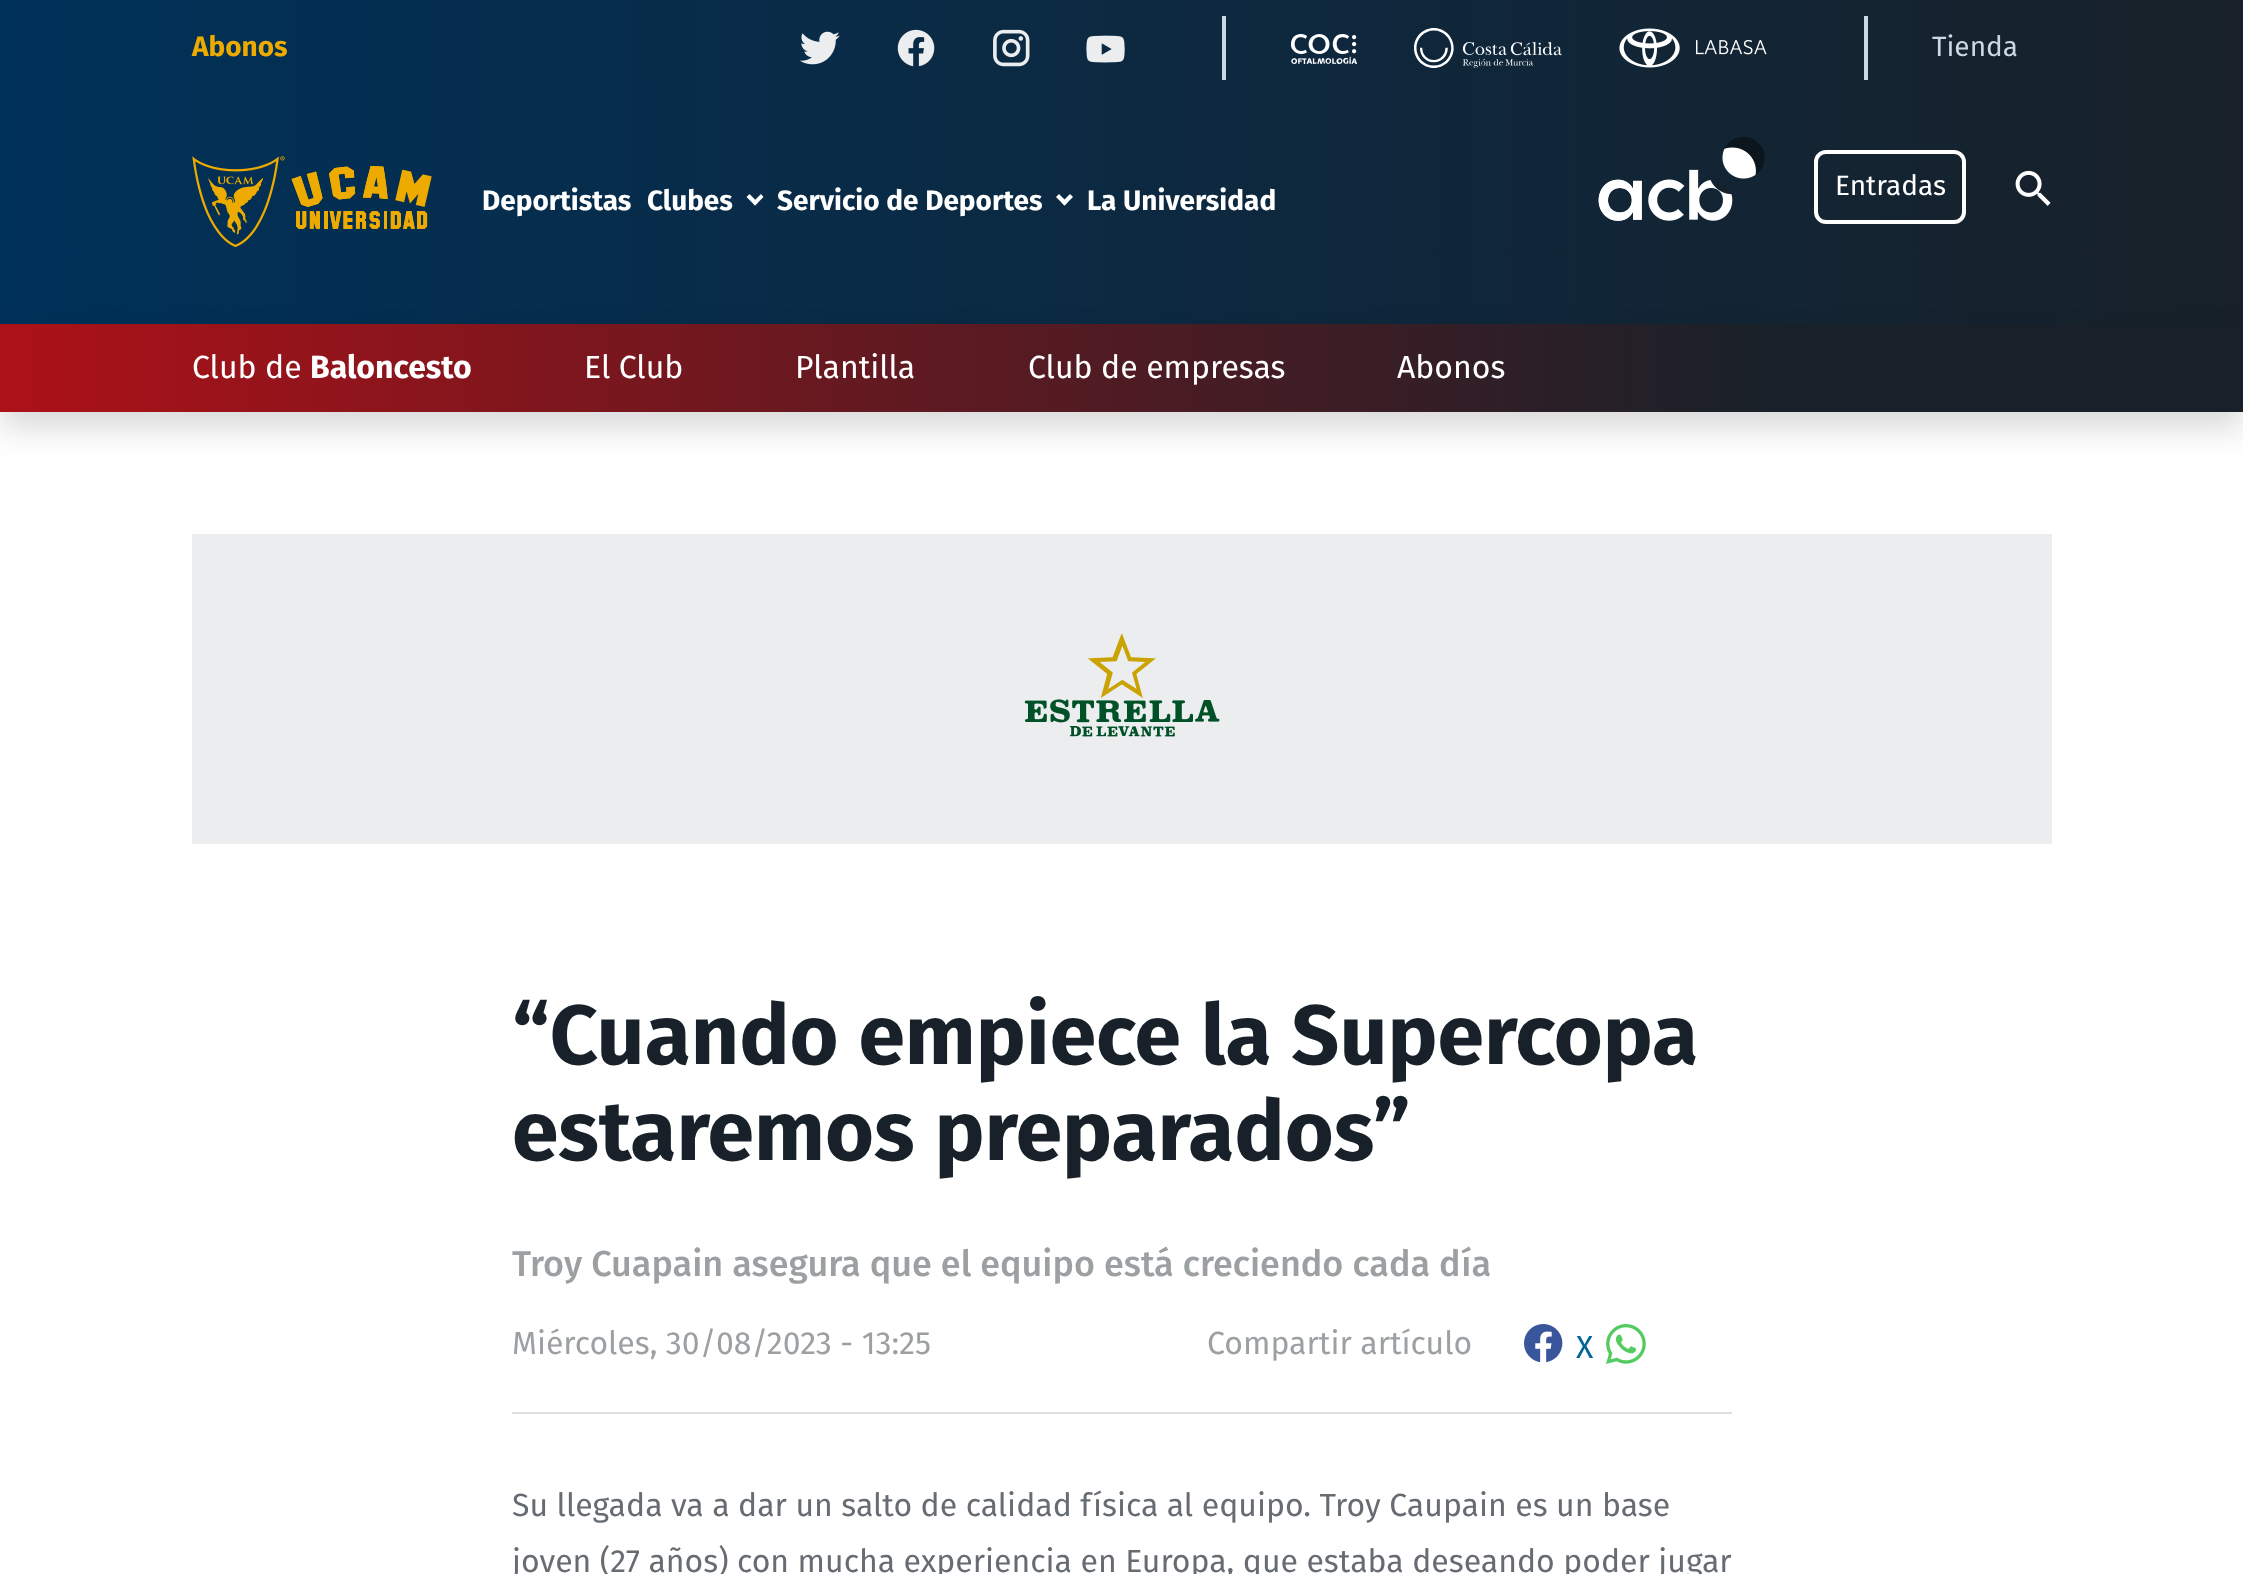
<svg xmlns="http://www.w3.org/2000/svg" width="2243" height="1574">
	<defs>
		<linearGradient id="g1" gradientUnits="userSpaceOnUse" x1="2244" y1="205" x2="-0.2" y2="207"><stop offset="0" stop-color="#182129" /><stop offset="1" stop-color="#003159" /></linearGradient>
		<linearGradient id="g2" gradientUnits="userSpaceOnUse" x1="0" y1="367" x2="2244" y2="369"><stop offset="0" stop-color="#AD1118" /><stop offset="0.79" stop-color="#182129" /></linearGradient>
	</defs>
	<rect width="100%" height="100%" fill="#FFFFFF" />
	<rect x="0" y="0" width="2243" height="324" fill="url(#g1)" />
	<text x="192" y="56" font-family="Fira Sans" font-size="28" font-weight="700" fill="#EDAB00">Abonos</text>
	<image x="800" y="31" width="40" height="34" href="assets/img1.png" />
	<image x="897" y="29" width="38" height="38" href="assets/img2.png" />
	<image x="993" y="29" width="37" height="38" href="assets/img3.png" />
	<rect x="1222" y="16" width="4" height="64" fill="#CCD9E4" />
	<image x="1086" y="35" width="39" height="28" href="assets/img4.png" />
	<image x="1291" y="34" width="66" height="30" href="assets/img5.png" />
	<image x="1414" y="28" width="148" height="40" href="assets/img6.png" />
	<rect x="1864" y="16" width="4" height="64" fill="#CCD9E4" />
	<image x="1619" y="28" width="148" height="40" href="assets/img7.png" />
	<text x="1932" y="56" font-family="Fira Sans" font-size="28" fill="#CCD9E4">Tienda</text>
	<image x="192" y="156" width="240" height="91" href="assets/img8.png" />
	<g font-family="Fira Sans" font-size="28" font-weight="700" fill="#FFFFFF">
		<text x="482" y="210">Deportistas</text>
		<text x="647" y="210">Clubes</text>
	</g>
	<path d="M761 194L763.5 197L755 205.5L752.5 202.5Z" fill="#FFFFFF" />
	<path d="M749.5 194L758 202.5L755 205.5L746.5 197Z" fill="#FFFFFF" />
	<text x="777" y="210" font-family="Fira Sans" font-size="28" font-weight="700" fill="#FFFFFF">Servicio de Deportes</text>
	<path d="M1070 194L1073 197L1064.5 205.5L1061.5 202.5Z" fill="#FFFFFF" />
	<path d="M1059 194L1067.5 202.5L1064.5 205.5L1056 197Z" fill="#FFFFFF" />
	<text x="1087" y="210" font-family="Fira Sans" font-size="28" font-weight="700" fill="#FFFFFF">La Universidad</text>
	<image x="1598" y="136" width="167" height="85" href="assets/img9.png" />
	<rect x="1816" y="152" width="148" height="70" rx="10" fill="none" stroke="#FFFFFF" stroke-width="4" />
	<text x="1835" y="195" font-family="Fira Sans" font-size="28" fill="#FFFFFF">Entradas</text>
	<image x="2015" y="170" width="36" height="36" href="assets/img10.png" />
	<rect x="0" y="340" width="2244" height="88" fill="#000000" fill-opacity="0.15" filter="blur(16px)" />
	<rect x="0" y="324" width="2243" height="88" fill="url(#g2)" />
	<text x="192" y="378" font-family="Fira Sans" font-size="32" fill="#FFFFFF">Club de</text>
	<text x="310" y="378" font-family="Fira Sans" font-size="32" font-weight="700" fill="#FFFFFF">Baloncesto</text>
	<g font-family="Fira Sans" font-size="32" fill="#FFFFFF">
		<text x="584" y="378">El Club</text>
		<text x="795" y="378">Plantilla</text>
		<text x="1028" y="378">Club de empresas</text>
		<text x="1397" y="378">Abonos</text>
	</g>
	<rect x="192" y="534" width="1860" height="310" fill="#ECEDEE" />
	<image x="1024" y="634" width="196" height="103" href="assets/img11.png" />
	<g font-family="Fira Sans" font-size="84" font-weight="700" fill="#182129">
		<text x="512" y="1064">“Cuando empiece la Supercopa</text>
		<text x="512" y="1160">estaremos preparados”</text>
	</g>
	<text x="512" y="1276" font-family="Fira Sans" font-size="36" font-weight="500" fill="#9CA0A3">Troy Cuapain asegura que el equipo está creciendo cada día</text>
	<g font-family="Fira Sans" font-size="32" fill="#9CA0A3">
		<text x="512" y="1354">Miércoles, 30/08/2023 - 13:25</text>
		<text x="1207" y="1354">Compartir artículo</text>
	</g>
	<image x="1524" y="1324" width="39" height="39" href="assets/img12.png" />
	<text x="1576" y="1358" font-family="Fira Sans" font-size="32" fill="#006699">X</text>
	<image x="1606" y="1324" width="40" height="40" href="assets/img13.png" />
	<rect x="512" y="1412" width="1220" height="2" fill="#DFE0E1" />
	<g font-family="Fira Sans" font-size="32" fill="#666C72">
		<text x="512" y="1516">Su llegada va a dar un salto de calidad física al equipo. Troy Caupain es un base</text>
		<text x="512" y="1572">joven (27 años) con mucha experiencia en Europa, que estaba deseando poder jugar</text>
	</g>
</svg>
